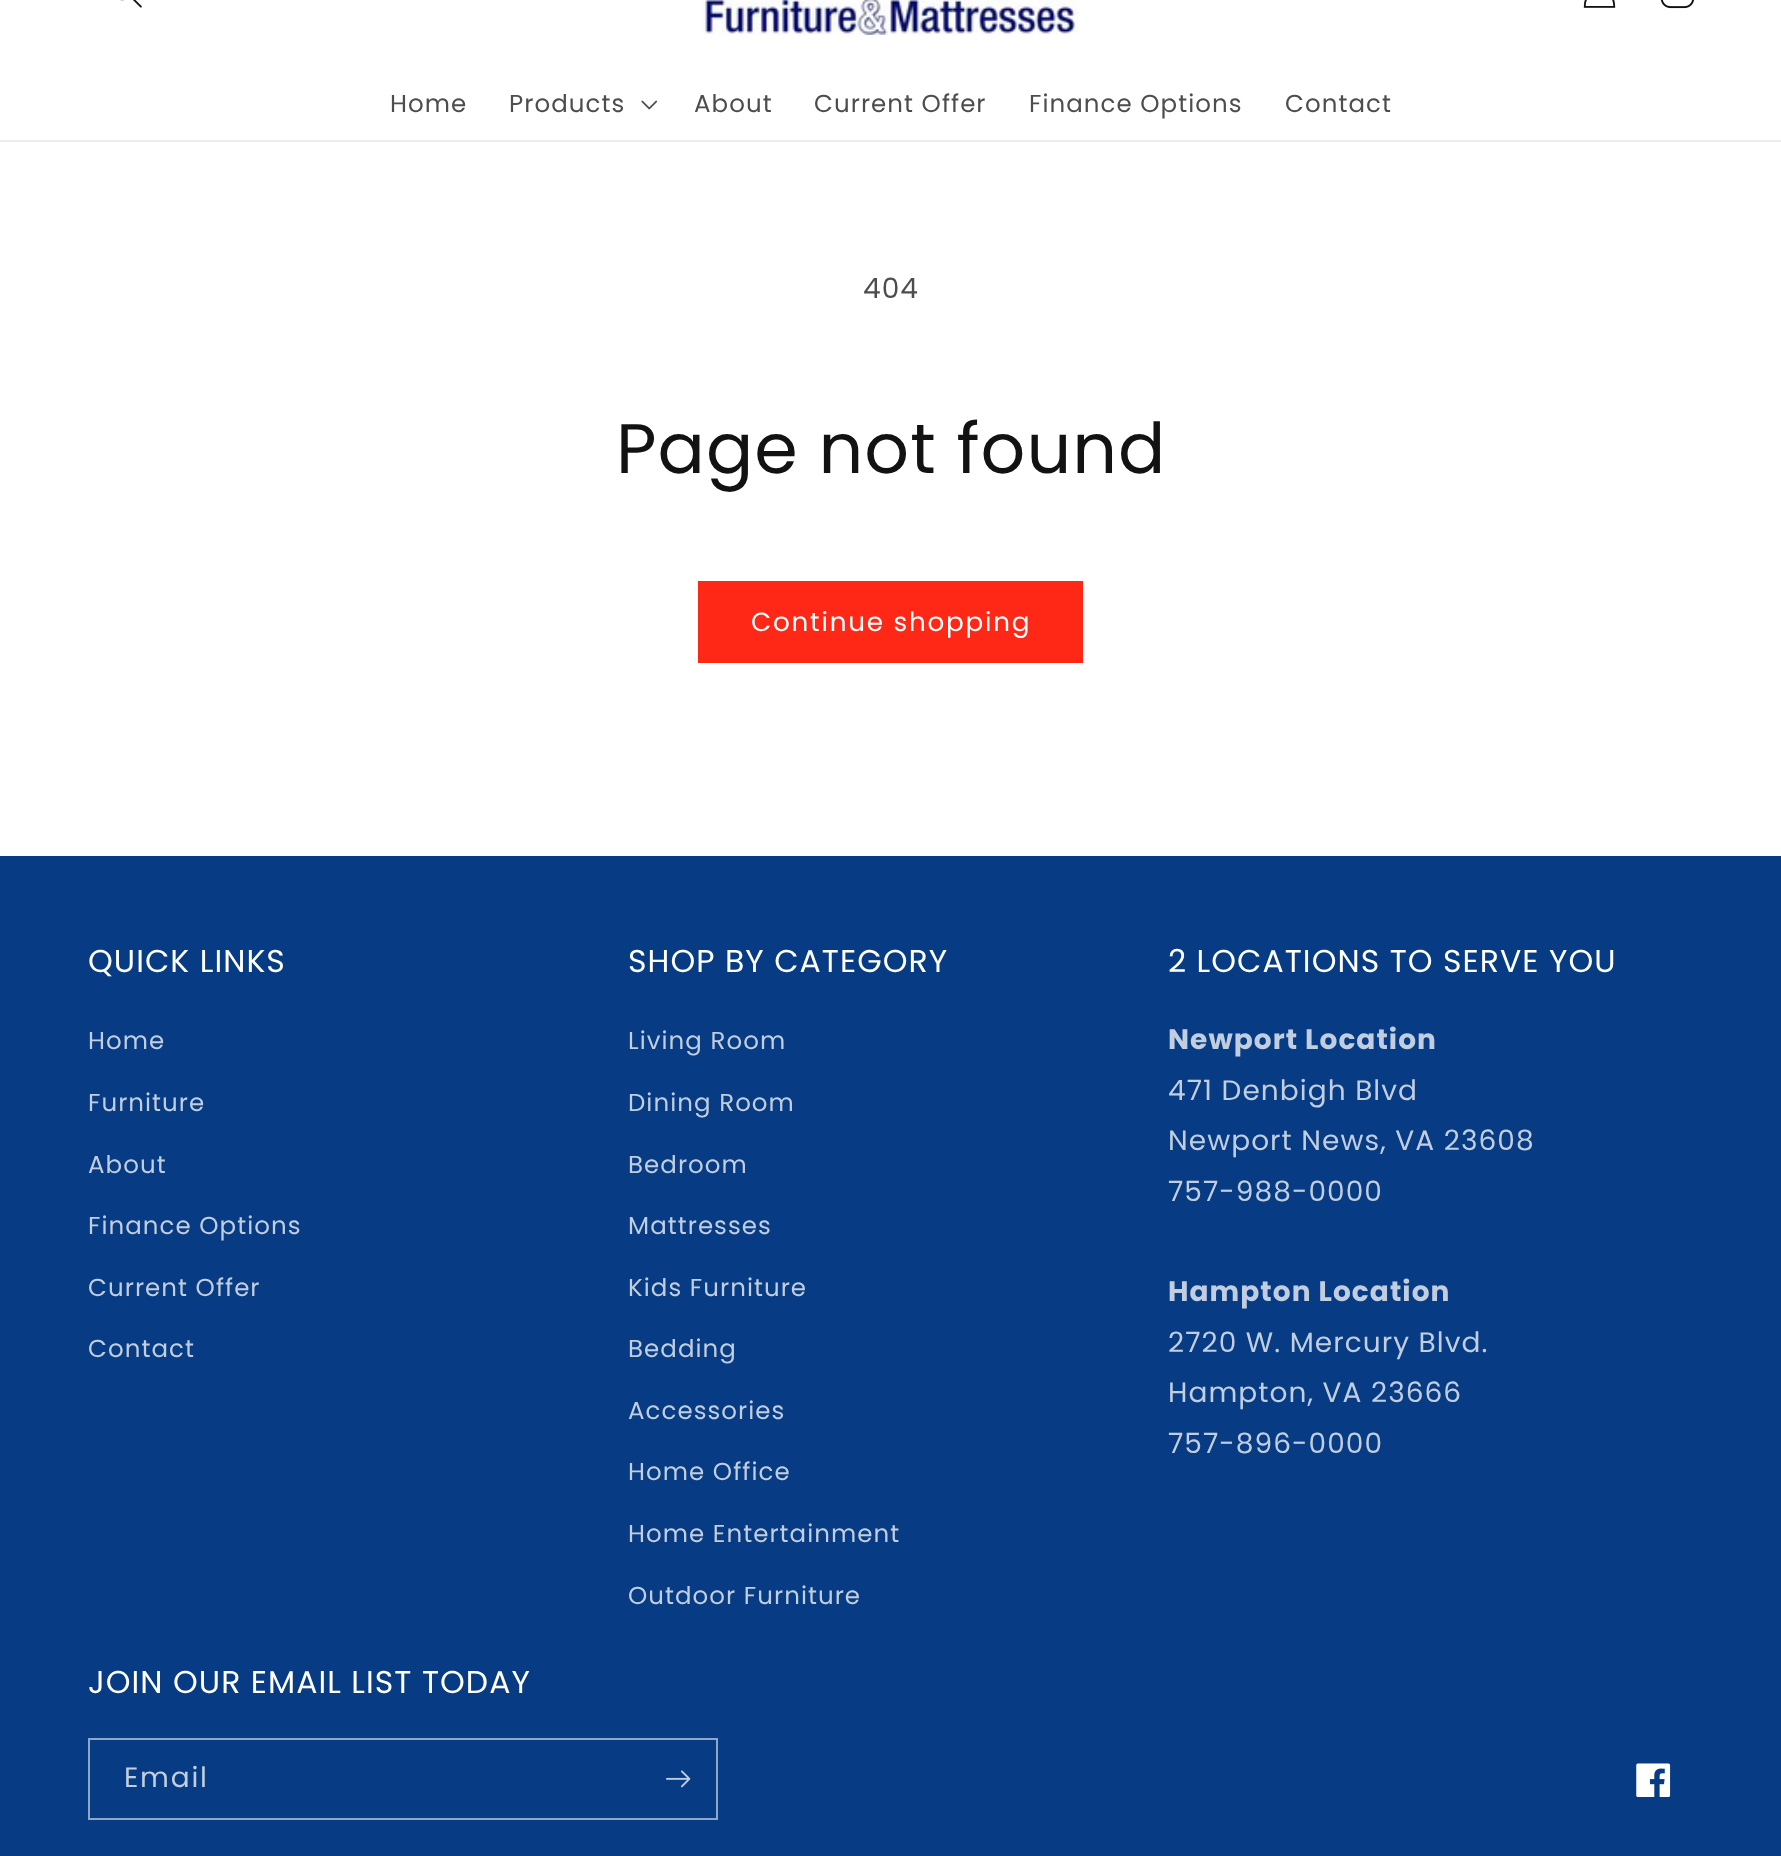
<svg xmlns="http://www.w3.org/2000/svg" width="1781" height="1856">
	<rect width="100%" height="100%" fill="#FFFFFF" />
	<rect x="0" y="140" width="1781" height="2" fill="#ECECEC" />
	<image x="120" y="0" width="22" height="8" href="assets/img1.png" />
	<image x="701" y="0" width="378" height="35" href="assets/img2.png" />
	<image x="1583" y="0" width="33" height="8" href="assets/img3.png" />
	<image x="1660" y="0" width="34" height="9" href="assets/img4.png" />
	<g font-family="Poppins" font-size="24.5" letter-spacing="1.05" fill="#4D4D4D">
		<text x="390" y="112">Home</text>
		<text x="509" y="112">Products</text>
	</g>
	<image x="641" y="100" width="17" height="10" href="assets/img5.png" />
	<g font-family="Poppins" font-size="24.5" letter-spacing="1.05" fill="#4D4D4D">
		<text x="694" y="112">About</text>
		<text x="814" y="112">Current Offer</text>
		<text x="1029" y="112">Finance Options</text>
		<text x="1285" y="112">Contact</text>
	</g>
	<text x="863" y="298" font-family="Poppins" font-size="28" letter-spacing="1.05" fill="#4D4D4D">404</text>
	<text x="616" y="473" font-family="Poppins" font-size="70" letter-spacing="1.05" fill="#121212">Page not found</text>
	<rect x="698" y="581" width="385" height="82" fill="#FF2817" />
	<text x="751" y="631" font-family="Poppins" font-size="26.25" letter-spacing="1.75" fill="#FFFFFF">Continue shopping</text>
	<rect x="0" y="856" width="1781" height="1000" fill="#073B83" />
	<text x="88" y="972" font-family="Poppins" font-size="31.5" letter-spacing="1.05" fill="#FFFFFF">QUICK LINKS</text>
	<g font-family="Poppins" font-size="24.5" letter-spacing="1.05" fill="#C1CEE0">
		<text x="88" y="1049">Home</text>
		<text x="88" y="1111">Furniture</text>
		<text x="88" y="1173">About</text>
		<text x="88" y="1234">Finance Options</text>
		<text x="88" y="1296">Current Offer</text>
		<text x="88" y="1357">Contact</text>
	</g>
	<text x="628" y="972" font-family="Poppins" font-size="31.5" letter-spacing="1.05" fill="#FFFFFF">SHOP BY CATEGORY</text>
	<g font-family="Poppins" font-size="24.5" letter-spacing="1.05" fill="#C1CEE0">
		<text x="628" y="1049">Living Room</text>
		<text x="628" y="1111">Dining Room</text>
		<text x="628" y="1173">Bedroom</text>
		<text x="628" y="1234">Mattresses</text>
		<text x="628" y="1296">Kids Furniture</text>
		<text x="628" y="1357">Bedding</text>
		<text x="628" y="1419">Accessories</text>
		<text x="628" y="1480">Home Office</text>
		<text x="628" y="1542">Home Entertainment</text>
		<text x="628" y="1604">Outdoor Furniture</text>
	</g>
	<text x="1168" y="972" font-family="Poppins" font-size="31.5" letter-spacing="1.05" fill="#FFFFFF">2 LOCATIONS TO SERVE YOU</text>
	<text x="1168" y="1049" font-family="Poppins" font-size="28" font-weight="700" letter-spacing="1.05" fill="#C1CEE0">Newport Location</text>
	<g font-family="Poppins" font-size="28" letter-spacing="1.05" fill="#C1CEE0">
		<text x="1168" y="1100">471 Denbigh Blvd</text>
		<text x="1168" y="1150">Newport News, VA 23608</text>
		<text x="1168" y="1201">757-988-0000</text>
	</g>
	<text x="1168" y="1301" font-family="Poppins" font-size="28" font-weight="700" letter-spacing="1.05" fill="#C1CEE0">Hampton Location</text>
	<g font-family="Poppins" font-size="28" letter-spacing="1.05" fill="#C1CEE0">
		<text x="1168" y="1352">2720 W. Mercury Blvd.</text>
		<text x="1168" y="1402">Hampton, VA 23666</text>
		<text x="1168" y="1453">757-896-0000</text>
	</g>
	<text x="88" y="1693" font-family="Poppins" font-size="31.5" letter-spacing="1.05" fill="#FFFFFF">JOIN OUR EMAIL LIST TODAY</text>
	<rect x="89" y="1739" width="628" height="80" fill="none" stroke="#8FA7C7" stroke-width="2" />
	<text x="124" y="1787" font-family="Poppins" font-size="28" letter-spacing="1.75" fill="#C1CEE0">Email</text>
	<image x="666" y="1770" width="25" height="18" href="assets/img6.png" />
	<image x="1636" y="1763" width="35" height="34" href="assets/img7.png" />
</svg>
